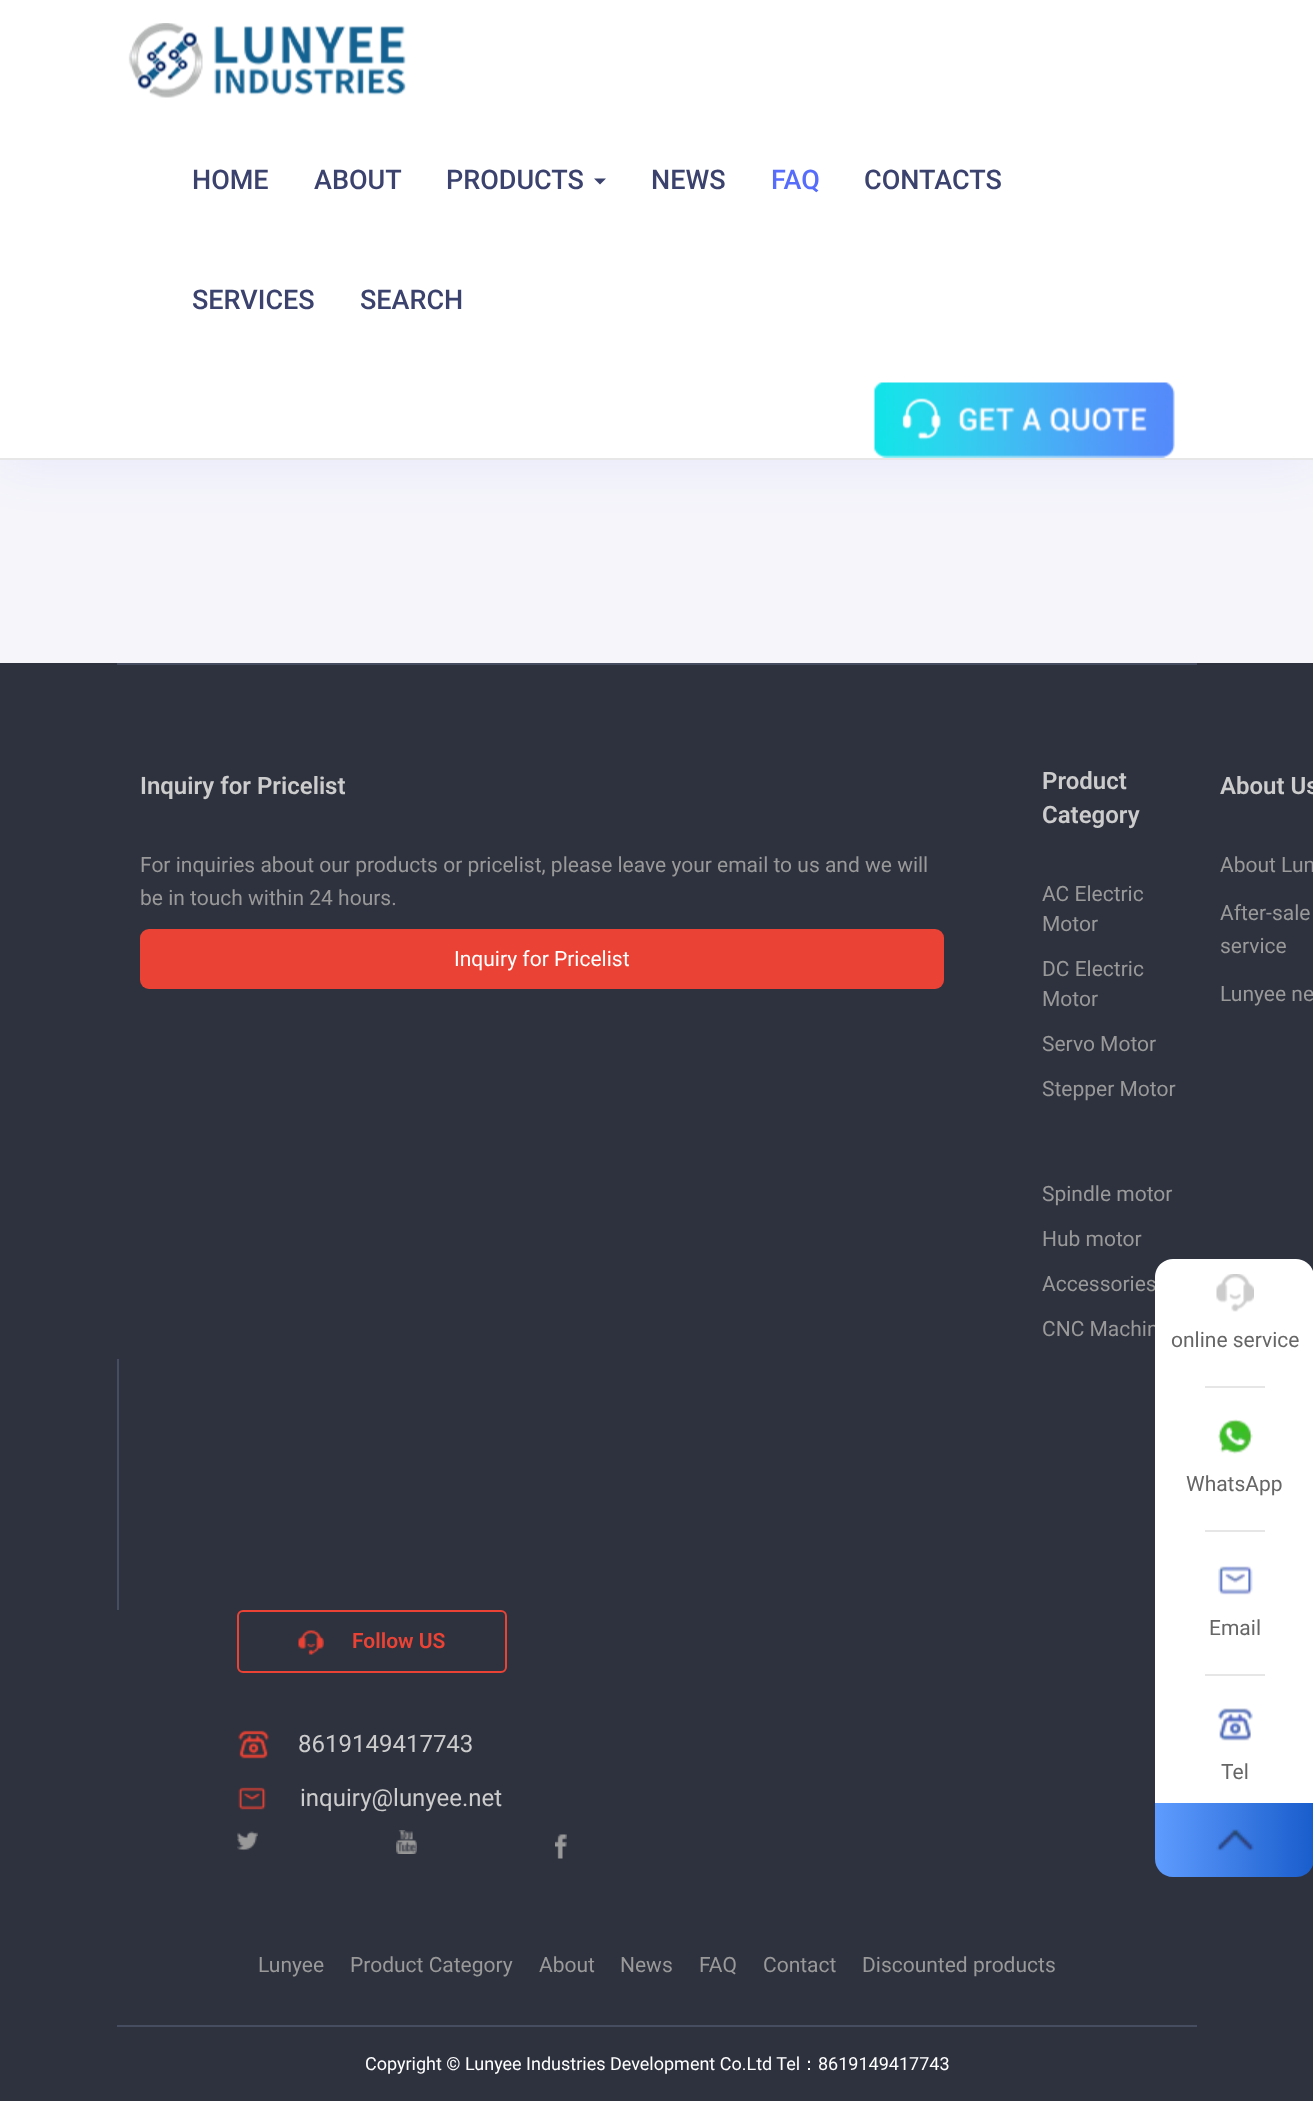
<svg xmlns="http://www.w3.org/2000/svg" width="1313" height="2101">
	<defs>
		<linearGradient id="g1" gradientUnits="userSpaceOnUse" x1="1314" y1="1840" x2="1155" y2="1840"><stop offset="0" stop-color="#195DCC" /><stop offset="1" stop-color="#5F9CFF" /></linearGradient>
	</defs>
	<rect width="100%" height="100%" fill="#F5F5FA" />
	<rect x="0" y="0" width="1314" height="459" fill="#566DFB" fill-opacity="0.1" filter="blur(28px)" />
	<rect x="0" y="0" width="1313" height="458" fill="#FFFFFF" />
	<rect x="0" y="458" width="1313" height="2" fill="#E7E7E7" />
	<image x="128" y="23" width="278" height="75" href="assets/img1.png" />
	<g font-family="Roboto" font-size="27" font-weight="500" fill="#3A426D">
		<text x="192" y="189">HOME</text>
		<text x="314" y="189">ABOUT</text>
		<text x="446" y="189">PRODUCTS</text>
	</g>
	<path d="M594 178.5H606L600 184.5Z" fill="#3A426D" />
	<text x="651" y="189" font-family="Roboto" font-size="27" font-weight="500" fill="#3A426D">NEWS</text>
	<text x="771" y="189" font-family="Roboto" font-size="27" font-weight="500" fill="#566DFB">FAQ</text>
	<g font-family="Roboto" font-size="27" font-weight="500" fill="#3A426D">
		<text x="864" y="189">CONTACTS</text>
		<text x="192" y="309">SERVICES</text>
		<text x="360" y="309">SEARCH</text>
	</g>
	<image x="874" y="382" width="301" height="76" href="assets/img2.png" />
	<rect x="0" y="663" width="1313" height="1438" fill="#2E323E" />
	<rect x="117" y="663" width="1080" height="2" fill="#474D60" />
	<text x="140" y="794" font-family="Roboto" font-size="24" font-weight="600" fill="#CCCCCC">Inquiry for Pricelist</text>
	<g font-family="Roboto" font-size="21" fill="#999999">
		<text x="140" y="872">For inquiries about our products or pricelist, please leave your email to us and we will</text>
		<text x="140" y="905">be in touch within 24 hours.</text>
	</g>
	<rect x="140" y="929" width="804" height="60" rx="9" fill="#EA4335" />
	<text x="454" y="966" font-family="Roboto" font-size="21" fill="#FFFFFF">Inquiry for Pricelist</text>
	<g font-family="Roboto" font-size="24" font-weight="600" fill="#CCCCCC">
		<text x="1042" y="789">Product</text>
		<text x="1042" y="823">Category</text>
	</g>
	<g font-family="Roboto" font-size="21" fill="#999999">
		<text x="1042" y="901">AC Electric</text>
		<text x="1042" y="931">Motor</text>
		<text x="1042" y="976">DC Electric</text>
		<text x="1042" y="1006">Motor</text>
		<text x="1042" y="1051">Servo Motor</text>
		<text x="1042" y="1096">Stepper Motor</text>
		<text x="1042" y="1201">Spindle motor</text>
		<text x="1042" y="1246">Hub motor</text>
		<text x="1042" y="1291">Accessories</text>
		<text x="1042" y="1336">CNC Machin</text>
	</g>
	<text x="1220" y="794" font-family="Roboto" font-size="24" font-weight="600" fill="#CCCCCC">About Us</text>
	<g font-family="Roboto" font-size="21" fill="#999999">
		<text x="1220" y="872">About Lun</text>
		<text x="1220" y="920">After-sale</text>
		<text x="1220" y="953">service</text>
		<text x="1220" y="1001">Lunyee ne</text>
	</g>
	<rect x="117" y="1359" width="2" height="251" fill="#474D60" />
	<rect x="238" y="1611" width="268" height="61" rx="5" fill="none" stroke="#EA4335" stroke-width="2" />
	<image x="298" y="1630" width="26" height="25" href="assets/img3.png" />
	<text x="352" y="1648" font-family="Roboto" font-size="21" font-weight="600" fill="#EA4335">Follow US</text>
	<image x="238" y="1730" width="31" height="29" href="assets/img4.png" />
	<text x="298" y="1752" font-family="Roboto" font-size="24" fill="#CCCCCC">8619149417743</text>
	<image x="238" y="1787" width="28" height="23" href="assets/img5.png" />
	<text x="300" y="1806" font-family="Roboto" font-size="24" fill="#CCCCCC">inquiry@lunyee.net</text>
	<image x="237" y="1831" width="21" height="20" href="assets/img6.png" />
	<image x="396" y="1830" width="21" height="24" href="assets/img7.png" />
	<image x="555" y="1834" width="12" height="25" href="assets/img8.png" />
	<g font-family="Roboto" font-size="21" fill="#999999">
		<text x="258" y="1972">Lunyee</text>
		<text x="350" y="1972">Product Category</text>
		<text x="539" y="1972">About</text>
		<text x="620" y="1972">News</text>
		<text x="699" y="1972">FAQ</text>
		<text x="763" y="1972">Contact</text>
		<text x="862" y="1972">Discounted products</text>
	</g>
	<rect x="117" y="2025" width="1080" height="2" fill="#474D60" />
	<text x="365" y="2070" font-family="Roboto" font-size="18" fill="#FFFFFF">Copyright © Lunyee Industries Development Co.Ltd Tel</text>
	<text x="800" y="2070" font-family="WenQuanYi Zen Hei" font-size="18" font-weight="500" fill="#FFFFFF">：</text>
	<text x="818" y="2070" font-family="Roboto" font-size="18" fill="#FFFFFF">8619149417743</text>
	<path d="M1173 1259H1296C1306 1259 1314 1267 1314 1277V1403H1155V1277C1155 1267 1163 1259 1173 1259Z" fill="#FFFFFF" />
	<image x="1216" y="1274" width="38" height="38" href="assets/img9.png" />
	<text x="1171" y="1347" font-family="Roboto" font-size="21" fill="#666666">online service</text>
	<rect x="1205" y="1386" width="60" height="2" fill="#E6E6E6" />
	<rect x="1155" y="1403" width="158" height="400" fill="#FFFFFF" />
	<image x="1218" y="1419" width="35" height="35" href="assets/img10.png" />
	<text x="1186" y="1491" font-family="Roboto" font-size="21" fill="#666666">WhatsApp</text>
	<rect x="1205" y="1530" width="60" height="2" fill="#E6E6E6" />
	<image x="1218" y="1566" width="35" height="29" href="assets/img11.png" />
	<text x="1209" y="1635" font-family="Roboto" font-size="21" fill="#666666">Email</text>
	<rect x="1205" y="1674" width="60" height="2" fill="#E6E6E6" />
	<image x="1217" y="1708" width="36" height="33" href="assets/img12.png" />
	<text x="1221" y="1779" font-family="Roboto" font-size="21" fill="#666666">Tel</text>
	<path d="M1155 1803H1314V1859C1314 1869 1306 1877 1296 1877H1173C1163 1877 1155 1869 1155 1859Z" fill="url(#g1)" />
	<image x="1216" y="1829" width="38" height="22" href="assets/img13.png" />
</svg>
